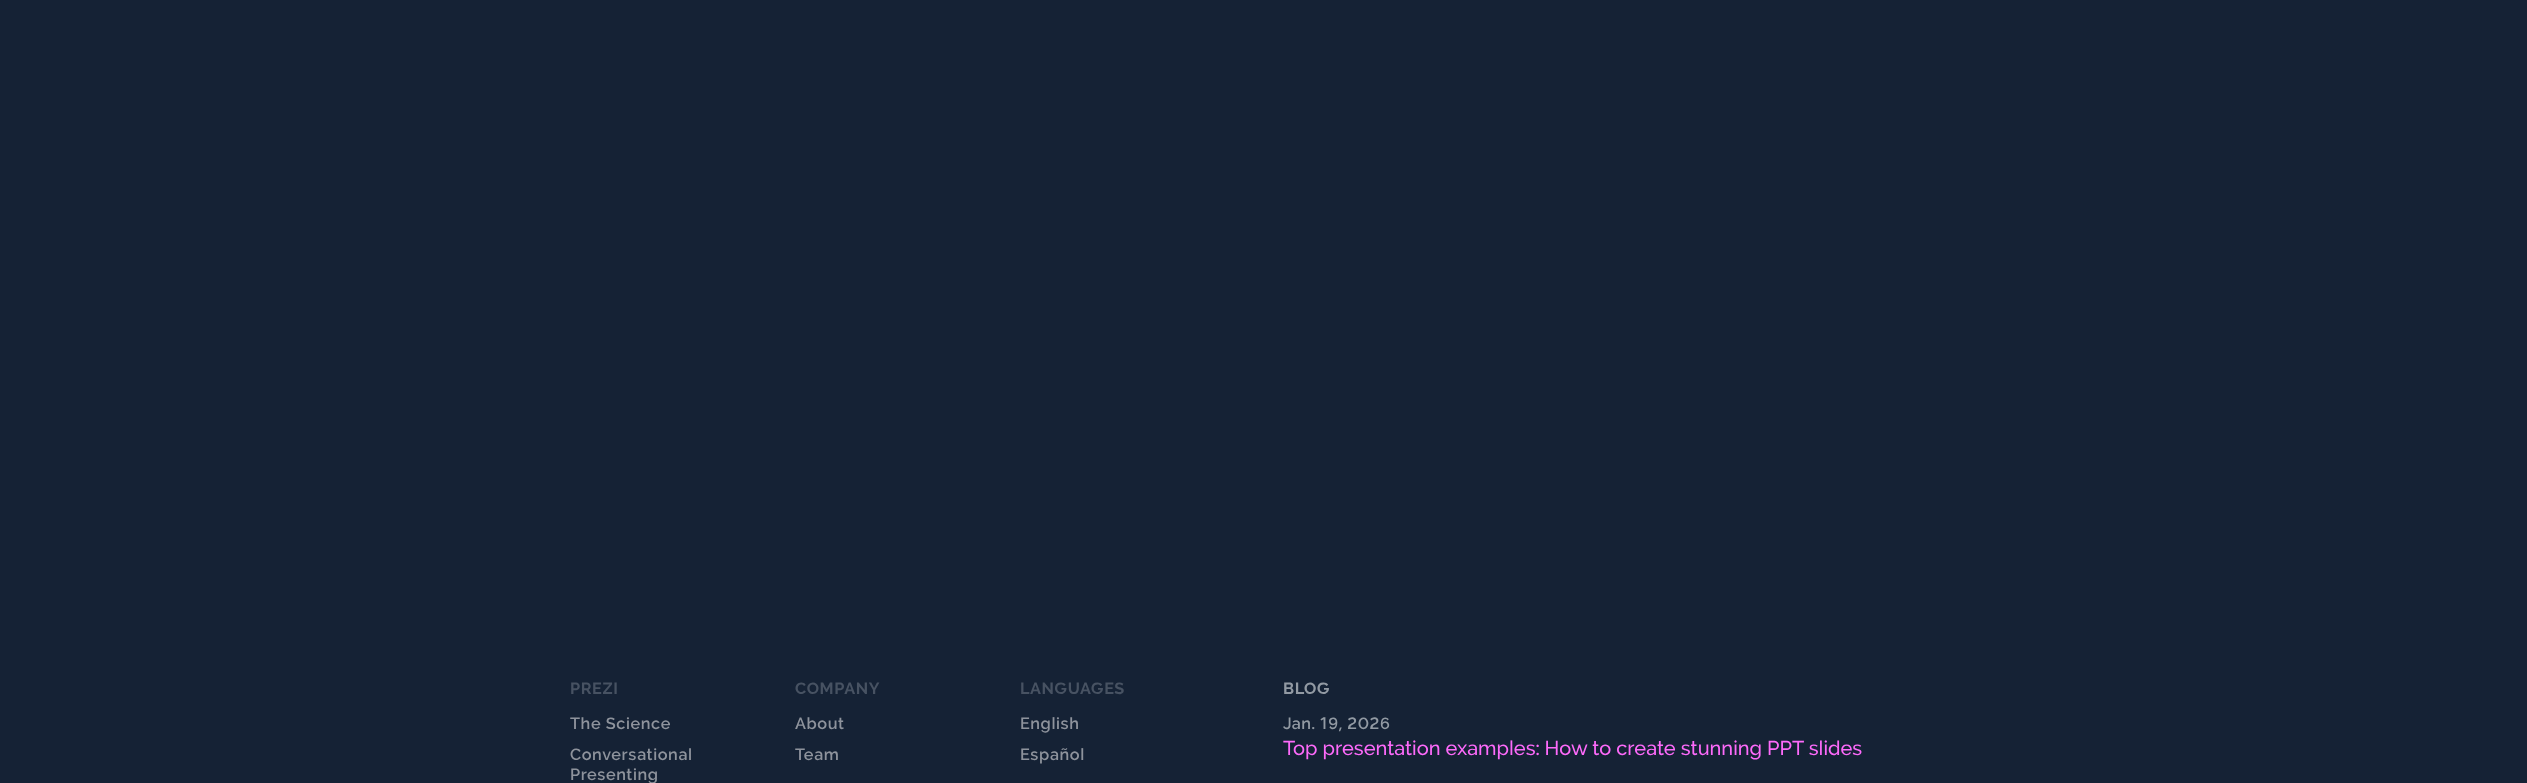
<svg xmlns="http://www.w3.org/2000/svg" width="2527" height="783">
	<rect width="100%" height="100%" fill="#152235" />
	<text x="570" y="694" font-family="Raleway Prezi" font-size="16.25" font-weight="700" letter-spacing="0.6" fill="#475262">PREZI</text>
	<g font-family="Raleway Prezi" font-size="16.25" font-weight="600" letter-spacing="0.6" fill="#8E939C">
		<text x="570" y="729">The Science</text>
		<text x="570" y="760">Conversational</text>
		<text x="570" y="780">Presenting</text>
	</g>
	<text x="795" y="694" font-family="Raleway Prezi" font-size="16.25" font-weight="700" letter-spacing="0.6" fill="#475262">COMPANY</text>
	<g font-family="Raleway Prezi" font-size="16.25" font-weight="600" letter-spacing="0.6" fill="#8E939C">
		<text x="795" y="729">About</text>
		<text x="795" y="760">Team</text>
	</g>
	<text x="1020" y="694" font-family="Raleway Prezi" font-size="16.25" font-weight="700" letter-spacing="0.6" fill="#475262">LANGUAGES</text>
	<g font-family="Raleway Prezi" font-size="16.25" font-weight="600" letter-spacing="0.6" fill="#8E939C">
		<text x="1020" y="729">English</text>
		<text x="1020" y="760">Español</text>
	</g>
	<text x="1283" y="694" font-family="Raleway Prezi" font-size="16.25" font-weight="700" letter-spacing="0.6" fill="#929AA3">BLOG</text>
	<text x="1283" y="729" font-family="Raleway Prezi" font-size="16.25" font-weight="600" letter-spacing="0.6" fill="#929AA3">Jan. 19, 2026</text>
	<text x="1283" y="755" font-family="Raleway Prezi" font-size="20" font-weight="500" fill="#FD6AFA">Top presentation examples: How to create stunning PPT slides</text>
</svg>
